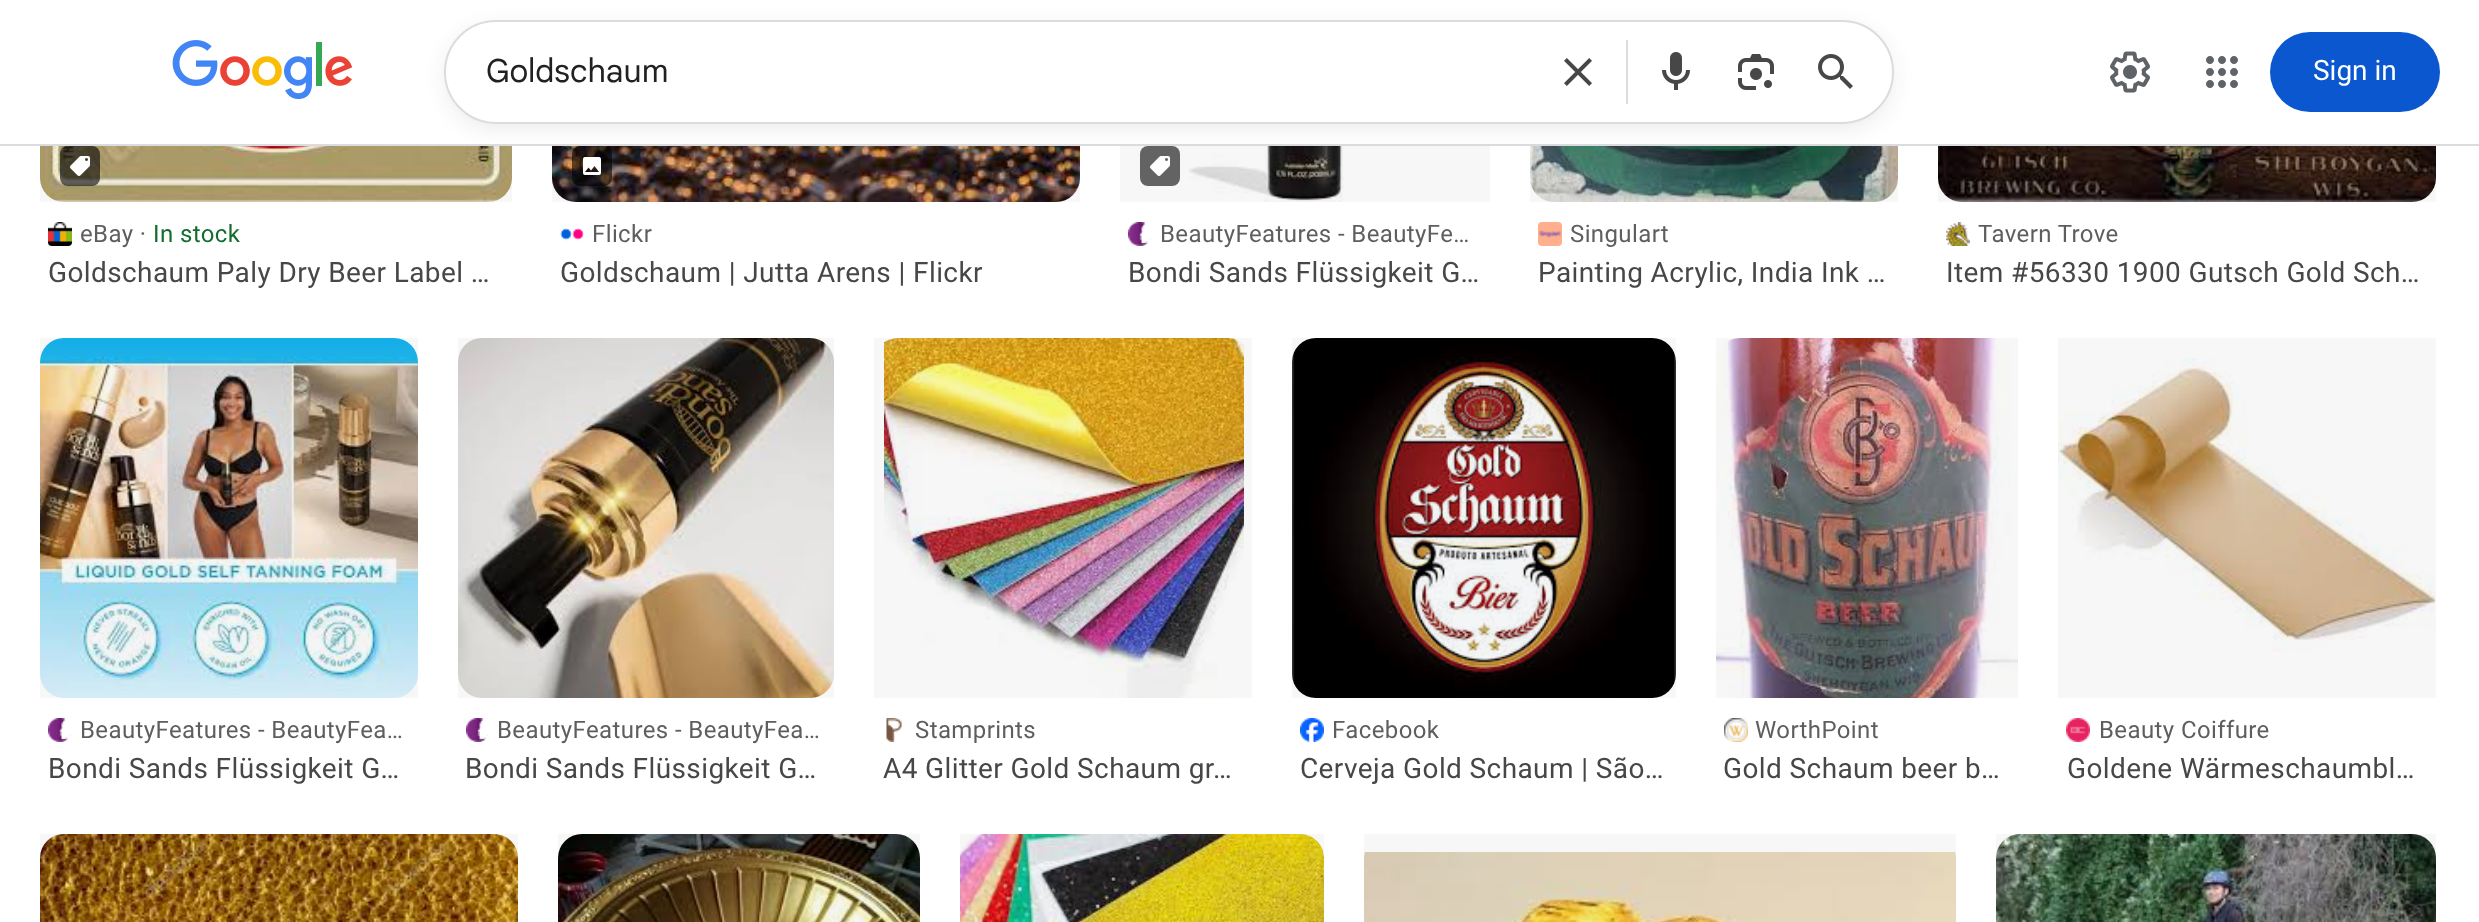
<svg xmlns="http://www.w3.org/2000/svg" width="2479" height="922">
	<rect width="100%" height="100%" fill="#FFFFFF" />
	<rect x="0" y="144" width="2479" height="2" fill="#DADCE0" />
	<image x="172" y="40" width="181" height="60" href="assets/img1.png" />
	<image x="40" y="146" width="472" height="56" href="assets/img8.png" />
	<rect x="40" y="146" width="472" height="56" fill="#000000" fill-opacity="0.03" />
	<image x="552" y="146" width="528" height="56" href="assets/img11.png" />
	<rect x="552" y="146" width="528" height="56" fill="#000000" fill-opacity="0.03" />
	<rect x="572" y="146" width="40" height="40" rx="8" fill="#000000" fill-opacity="0.6" />
	<image x="583" y="157" width="18" height="18" href="assets/img12.png" />
	<image x="1188" y="146" width="170" height="56" href="assets/img14.png" />
	<rect x="1120" y="146" width="370" height="56" fill="#000000" fill-opacity="0.03" />
	<rect x="1140" y="146" width="40" height="40" rx="8" fill="#636363" />
	<image x="1150" y="156" width="20" height="20" href="assets/img15.png" />
	<image x="1530" y="146" width="368" height="56" href="assets/img17.png" />
	<rect x="1530" y="146" width="368" height="56" fill="#000000" fill-opacity="0.03" />
	<rect x="444" y="26" width="1450" height="104" rx="52" fill="#1F1F1F" fill-opacity="0.08" filter="blur(10px)" />
	<rect x="445" y="21" width="1448" height="102" rx="51" fill="#FFFFFF" stroke="#DADCE0" stroke-width="2" />
	<text x="486" y="82" font-family="Google Sans" font-size="32" fill="#212121">Goldschaum</text>
	<image x="1564" y="58" width="28" height="28" href="assets/img2.png" />
	<rect x="1626" y="40" width="2" height="64" fill="#DADCE0" />
	<image x="1662" y="52" width="28" height="38" href="assets/img3.png" />
	<image x="1738" y="54" width="36" height="36" href="assets/img4.png" />
	<image x="1818" y="54" width="35" height="35" href="assets/img5.png" />
	<image x="2110" y="51" width="40" height="42" href="assets/img6.png" />
	<image x="2206" y="56" width="32" height="32" href="assets/img7.png" />
	<rect x="2270" y="32" width="170" height="80" rx="40" fill="#0B57D0" />
	<text x="2313" y="80" font-family="Roboto" font-size="28" fill="#FFFFFF">Sign in</text>
	<rect x="60" y="146" width="40" height="40" rx="8" fill="#000000" fill-opacity="0.6" />
	<image x="70" y="156" width="20" height="20" href="assets/img9.png" />
	<image x="48" y="222" width="24" height="24" href="assets/img10.png" />
	<text x="80" y="242" font-family="Roboto" font-size="24" letter-spacing="0.4" fill="#5E5E5E">eBay ·</text>
	<text x="153" y="242" font-family="Roboto" font-size="24" letter-spacing="0.4" fill="#146C2E">In stock</text>
	<text x="48" y="282" font-family="Roboto" font-size="28" letter-spacing="0.4" fill="#474747">Goldschaum Paly Dry Beer Label …</text>
	<image x="560" y="228" width="24" height="13" href="assets/img13.png" />
	<text x="592" y="242" font-family="Roboto" font-size="24" letter-spacing="0.4" fill="#5E5E5E">Flickr</text>
	<text x="560" y="282" font-family="Roboto" font-size="28" letter-spacing="0.4" fill="#474747">Goldschaum | Jutta Arens | Flickr</text>
	<image x="1128" y="222" width="23" height="24" href="assets/img16.png" />
	<text x="1160" y="242" font-family="Roboto" font-size="24" letter-spacing="0.4" fill="#5E5E5E">BeautyFeatures - BeautyFe…</text>
	<text x="1128" y="282" font-family="Roboto" font-size="28" letter-spacing="0.4" fill="#474747">Bondi Sands Flüssigkeit G…</text>
	<image x="1538" y="222" width="24" height="24" href="assets/img18.png" />
	<text x="1570" y="242" font-family="Roboto" font-size="24" letter-spacing="0.4" fill="#5E5E5E">Singulart</text>
	<text x="1538" y="282" font-family="Roboto" font-size="28" letter-spacing="0.4" fill="#474747">Painting Acrylic, India Ink …</text>
	<image x="1938" y="146" width="498" height="56" href="assets/img19.png" />
	<rect x="1938" y="146" width="498" height="56" fill="#000000" fill-opacity="0.03" />
	<image x="1946" y="222" width="24" height="24" href="assets/img20.png" />
	<text x="1978" y="242" font-family="Roboto" font-size="24" letter-spacing="0.4" fill="#5E5E5E">Tavern Trove</text>
	<text x="1946" y="282" font-family="Roboto" font-size="28" letter-spacing="0.4" fill="#474747">Item #56330 1900 Gutsch Gold Sch…</text>
	<image x="40" y="338" width="378" height="360" href="assets/img21.png" />
	<rect x="40" y="338" width="378" height="360" fill="#000000" fill-opacity="0.03" />
	<image x="48" y="718" width="23" height="24" href="assets/img22.png" />
	<text x="80" y="738" font-family="Roboto" font-size="24" letter-spacing="0.4" fill="#5E5E5E">BeautyFeatures - BeautyFea…</text>
	<text x="48" y="778" font-family="Roboto" font-size="28" letter-spacing="0.4" fill="#474747">Bondi Sands Flüssigkeit G…</text>
	<image x="458" y="338" width="376" height="360" href="assets/img23.png" />
	<rect x="458" y="338" width="376" height="360" fill="#000000" fill-opacity="0.03" />
	<image x="466" y="718" width="23" height="24" href="assets/img16.png" />
	<text x="497" y="738" font-family="Roboto" font-size="24" letter-spacing="0.4" fill="#5E5E5E">BeautyFeatures - BeautyFea…</text>
	<text x="465" y="778" font-family="Roboto" font-size="28" letter-spacing="0.4" fill="#474747">Bondi Sands Flüssigkeit G…</text>
	<image x="884" y="338" width="360" height="360" href="assets/img24.png" />
	<rect x="874" y="338" width="378" height="360" fill="#000000" fill-opacity="0.03" />
	<image x="886" y="718" width="16" height="24" href="assets/img25.png" />
	<text x="915" y="738" font-family="Roboto" font-size="24" letter-spacing="0.4" fill="#5E5E5E">Stamprints</text>
	<text x="883" y="778" font-family="Roboto" font-size="28" letter-spacing="0.4" fill="#474747">A4 Glitter Gold Schaum gr…</text>
	<image x="1292" y="338" width="384" height="360" href="assets/img26.png" />
	<rect x="1292" y="338" width="384" height="360" fill="#000000" fill-opacity="0.03" />
	<image x="1300" y="718" width="24" height="24" href="assets/img27.png" />
	<text x="1332" y="738" font-family="Roboto" font-size="24" letter-spacing="0.4" fill="#5E5E5E">Facebook</text>
	<text x="1300" y="778" font-family="Roboto" font-size="28" letter-spacing="0.4" fill="#474747">Cerveja Gold Schaum | São…</text>
	<image x="1716" y="338" width="302" height="360" href="assets/img28.png" />
	<rect x="1716" y="338" width="302" height="360" fill="#000000" fill-opacity="0.03" />
	<image x="1724" y="718" width="24" height="24" href="assets/img29.png" />
	<text x="1755" y="738" font-family="Roboto" font-size="24" letter-spacing="0.4" fill="#5E5E5E">WorthPoint</text>
	<text x="1723" y="778" font-family="Roboto" font-size="28" letter-spacing="0.4" fill="#474747">Gold Schaum beer b…</text>
	<image x="2058" y="358" width="378" height="294" href="assets/img30.png" />
	<rect x="2058" y="338" width="378" height="360" fill="#000000" fill-opacity="0.03" />
	<image x="2066" y="718" width="24" height="24" href="assets/img31.png" />
	<text x="2099" y="738" font-family="Roboto" font-size="24" letter-spacing="0.4" fill="#5E5E5E">Beauty Coiffure</text>
	<text x="2067" y="778" font-family="Roboto" font-size="28" letter-spacing="0.4" fill="#474747">Goldene Wärmeschaumbl…</text>
	<image x="40" y="834" width="478" height="88" href="assets/img32.png" />
	<rect x="40" y="834" width="478" height="88" fill="#000000" fill-opacity="0.03" />
	<image x="558" y="834" width="362" height="88" href="assets/img33.png" />
	<rect x="558" y="834" width="362" height="88" fill="#000000" fill-opacity="0.03" />
	<image x="960" y="834" width="364" height="88" href="assets/img34.png" />
	<rect x="960" y="834" width="364" height="88" fill="#000000" fill-opacity="0.03" />
	<image x="1364" y="852" width="592" height="70" href="assets/img35.png" />
	<rect x="1364" y="834" width="592" height="88" fill="#000000" fill-opacity="0.03" />
	<image x="1996" y="834" width="440" height="88" href="assets/img36.png" />
	<rect x="1996" y="834" width="440" height="88" fill="#000000" fill-opacity="0.03" />
</svg>
